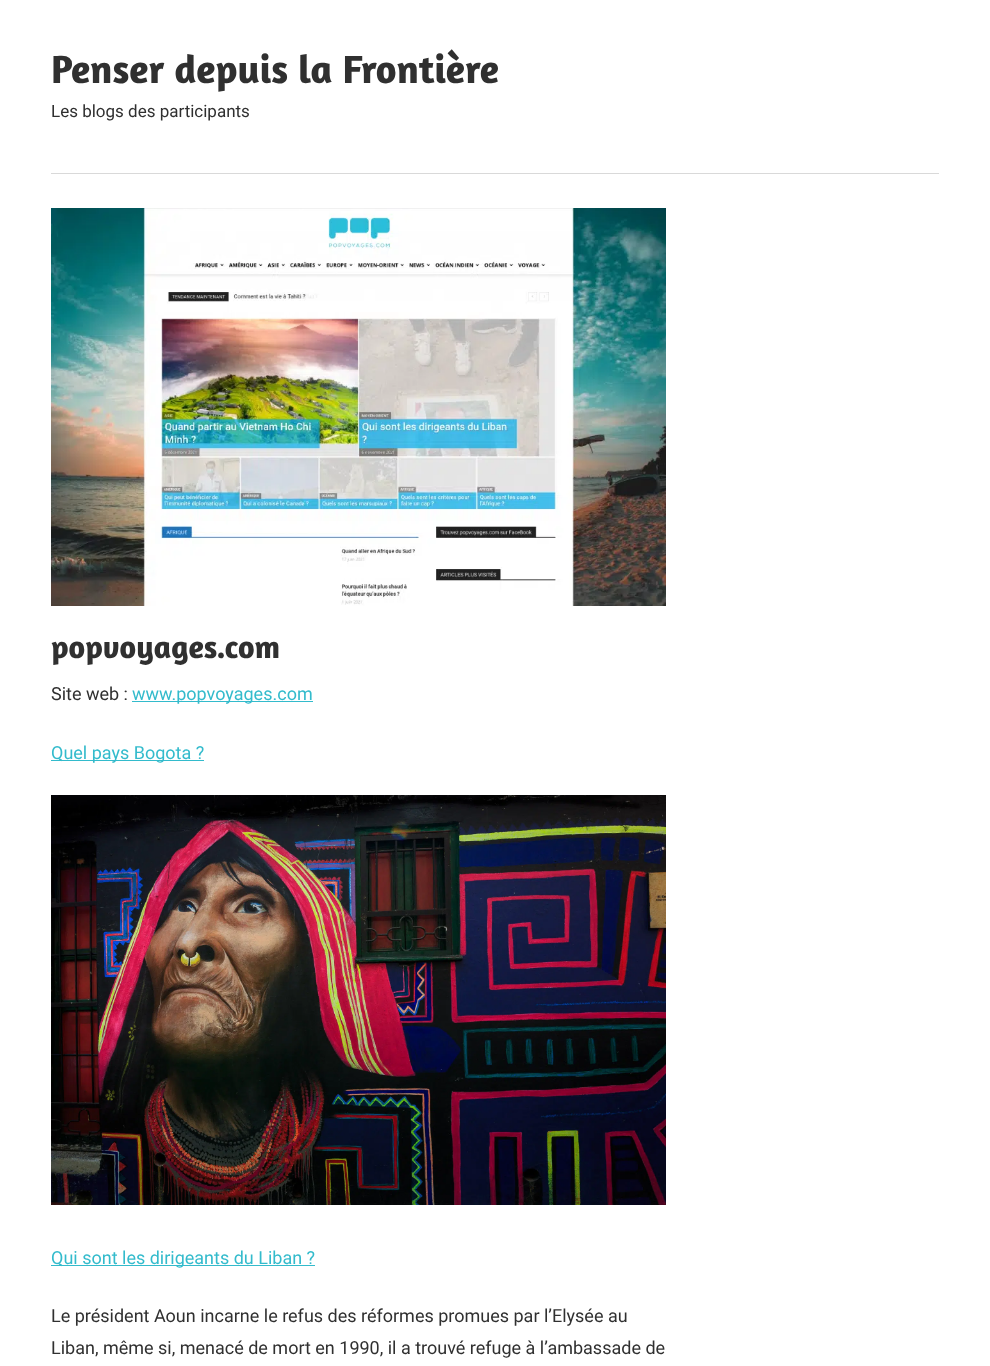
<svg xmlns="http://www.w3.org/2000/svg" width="990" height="1366">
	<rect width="100%" height="100%" fill="#FFFFFF" />
	<text x="51" y="83" font-family="Amaranth" font-size="40" font-weight="700" fill="#303030">Penser depuis la Frontière</text>
	<text x="51" y="117" font-family="Roboto" font-size="17" fill="#303030">Les blogs des participants</text>
	<rect x="51" y="173" width="888" height="1" fill="#D9D9D9" />
	<image x="51" y="208" width="615" height="398" href="assets/img1.png" />
	<text x="51" y="658" font-family="Amaranth" font-size="32" font-weight="700" fill="#303030">popvoyages.com</text>
	<text x="51" y="700" font-family="Roboto" font-size="18" fill="#303030">Site web :</text>
	<rect x="132" y="701" width="181" height="1" fill="#33BBCC" />
	<text x="132" y="700" font-family="Roboto" font-size="18" fill="#33BBCC">www.popvoyages.com</text>
	<rect x="51" y="760" width="153" height="1" fill="#33BBCC" />
	<text x="51" y="759" font-family="Roboto" font-size="18" fill="#33BBCC">Quel pays Bogota ?</text>
	<image x="51" y="795" width="615" height="410" href="assets/img2.png" />
	<rect x="51" y="1265" width="264" height="1" fill="#33BBCC" />
	<text x="51" y="1264" font-family="Roboto" font-size="18" fill="#33BBCC">Qui sont les dirigeants du Liban ?</text>
	<g font-family="Roboto" font-size="18" fill="#303030">
		<text x="51" y="1322">Le président Aoun incarne le refus des réformes promues par l’Elysée au</text>
		<text x="51" y="1354">Liban, même si, menacé de mort en 1990, il a trouvé refuge à l’ambassade de</text>
	</g>
</svg>
